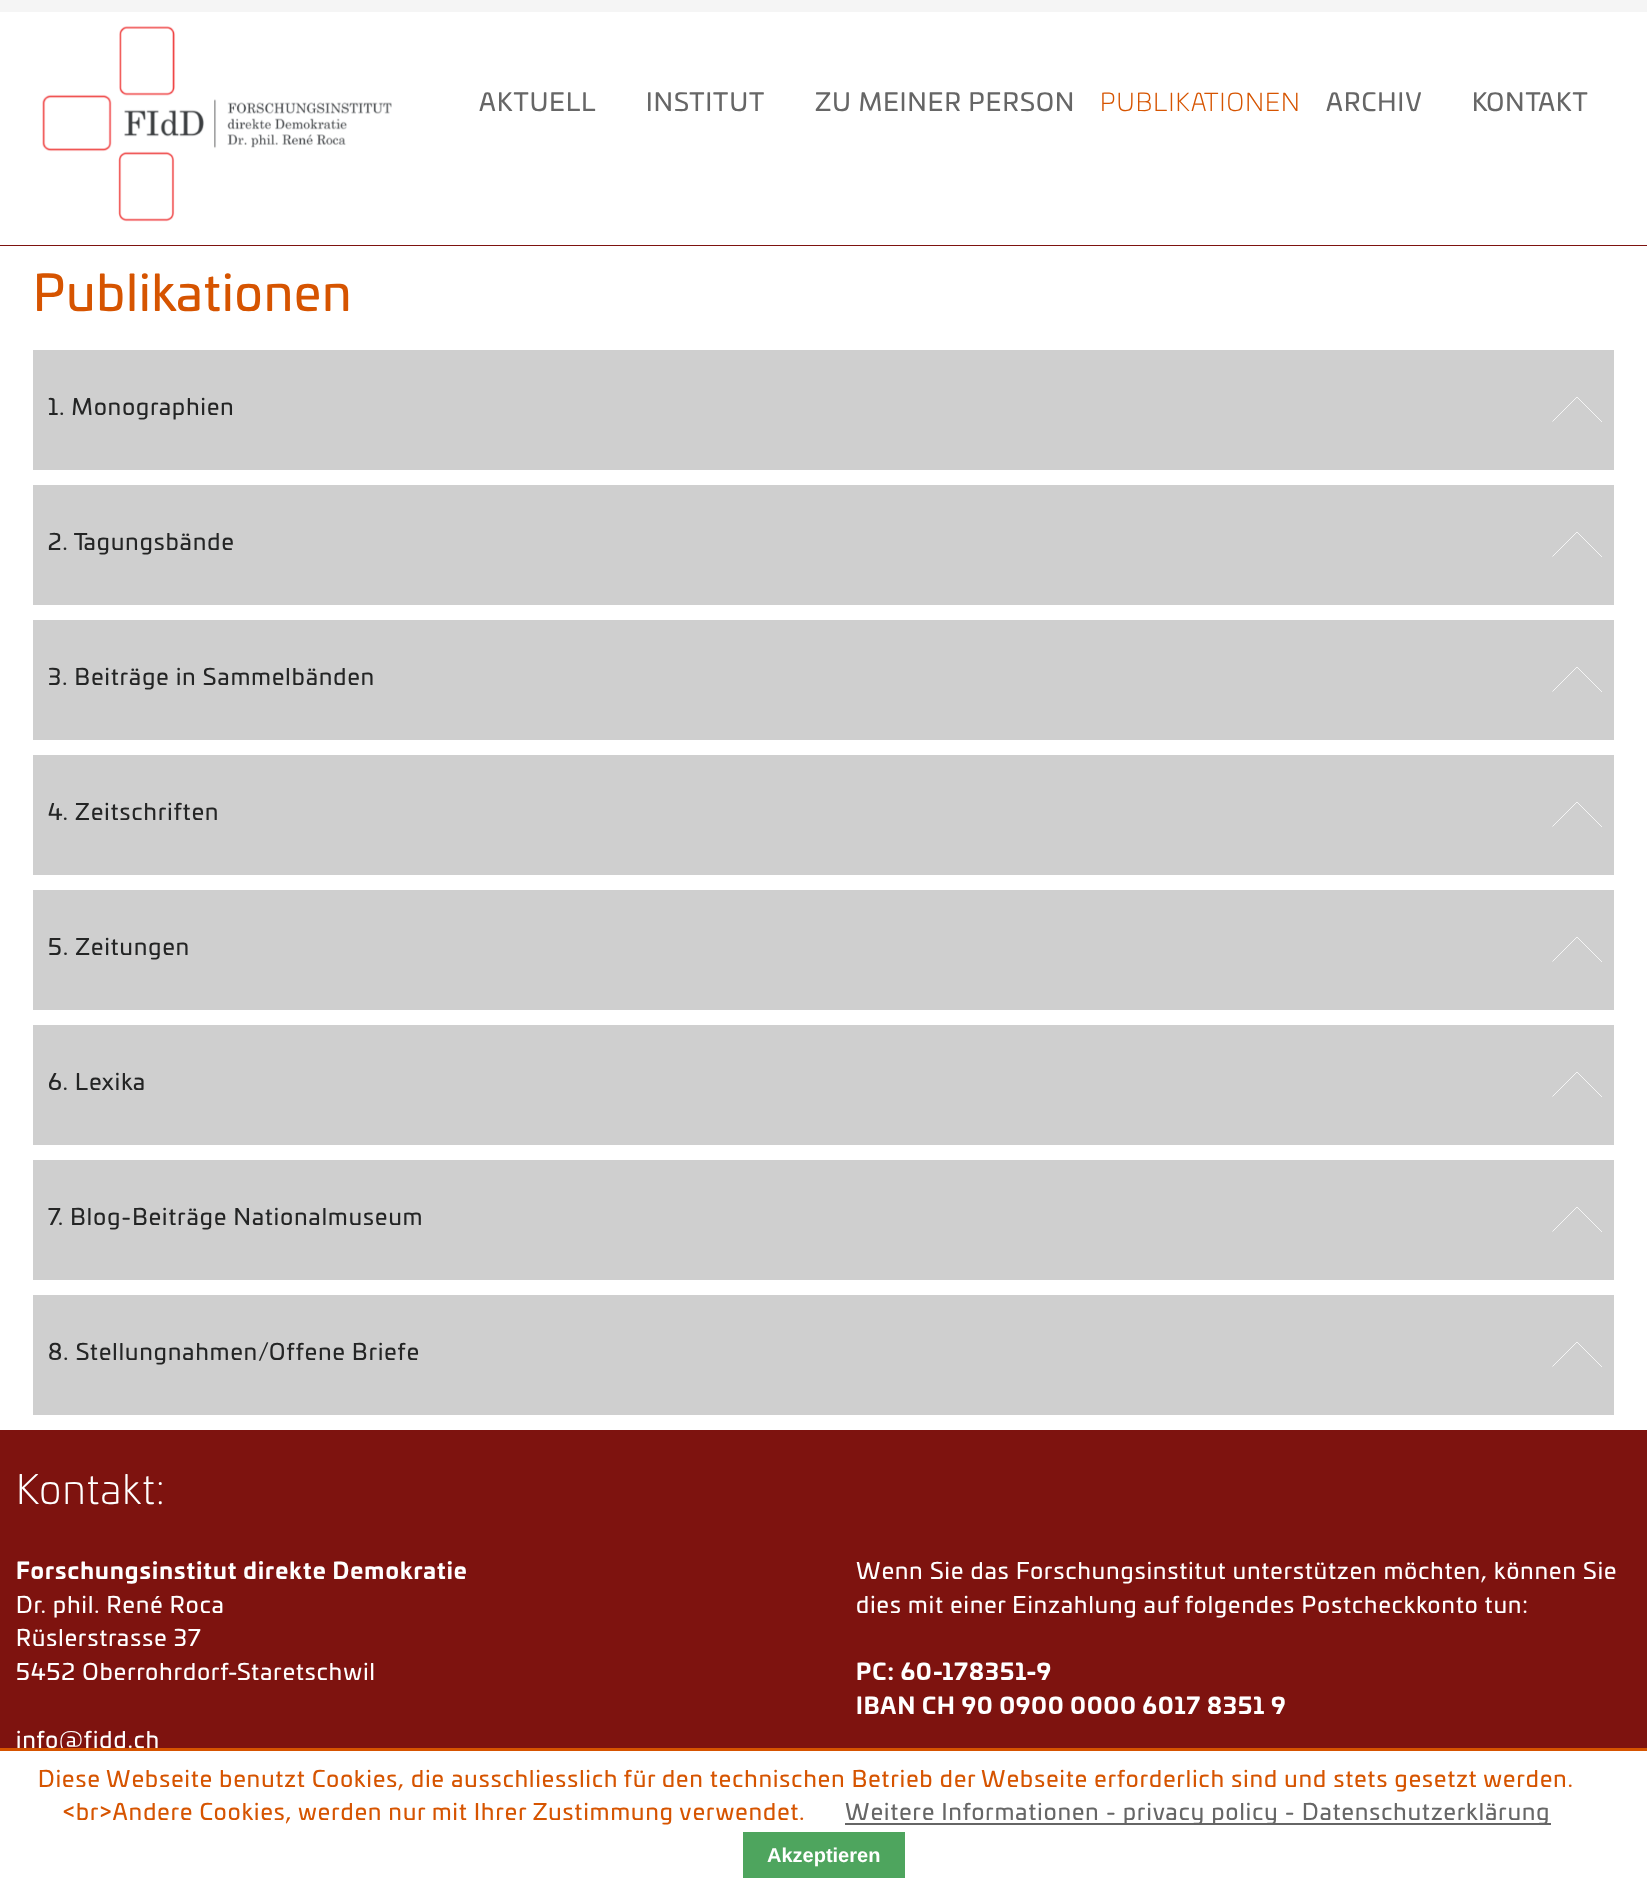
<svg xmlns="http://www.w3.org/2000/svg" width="1647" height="1891">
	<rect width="100%" height="100%" fill="#FFFFFF" />
	<rect x="0" y="0" width="1647" height="12" fill="#F5F5F5" />
	<rect x="0" y="245" width="1647" height="1" fill="#7E130F" />
	<image x="42" y="26" width="350" height="196" href="assets/img1.png" />
	<g font-family="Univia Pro" font-size="24.75" letter-spacing="1.12" fill="#666666">
		<text x="479" y="111">AKTUELL</text>
		<text x="646" y="111">INSTITUT</text>
		<text x="815" y="111">ZU MEINER PERSON</text>
	</g>
	<text x="1100" y="111" font-family="Univia Pro" font-size="24.75" font-weight="300" letter-spacing="1.12" fill="#D65400">PUBLIKATIONEN</text>
	<g font-family="Univia Pro" font-size="24.75" letter-spacing="1.12" fill="#666666">
		<text x="1326" y="111">ARCHIV</text>
		<text x="1472" y="111">KONTAKT</text>
	</g>
	<text x="33" y="311" font-family="Univia Pro" font-size="49.5" letter-spacing="1.12" fill="#D65400">Publikationen</text>
	<rect x="33" y="350" width="1581" height="120" fill="#CFCFCF" />
	<path d="M1552.5 421.5L1577 397L1602 422" fill="none" stroke="#FFFFFF" stroke-width="0.8" />
	<text x="48" y="415" font-family="Univia Pro" font-size="22.5" letter-spacing="1.12" fill="#242525">1. Monographien</text>
	<rect x="33" y="485" width="1581" height="120" fill="#CFCFCF" />
	<path d="M1552.5 556.5L1577 532L1602 557" fill="none" stroke="#FFFFFF" stroke-width="0.8" />
	<text x="48" y="550" font-family="Univia Pro" font-size="22.5" letter-spacing="1.12" fill="#242525">2. Tagungsbände</text>
	<rect x="33" y="620" width="1581" height="120" fill="#CFCFCF" />
	<path d="M1552.5 691.5L1577 667L1602 692" fill="none" stroke="#FFFFFF" stroke-width="0.8" />
	<text x="48" y="685" font-family="Univia Pro" font-size="22.5" letter-spacing="1.12" fill="#242525">3. Beiträge in Sammelbänden</text>
	<rect x="33" y="755" width="1581" height="120" fill="#CFCFCF" />
	<path d="M1552.5 826.5L1577 802L1602 827" fill="none" stroke="#FFFFFF" stroke-width="0.8" />
	<text x="48" y="820" font-family="Univia Pro" font-size="22.5" letter-spacing="1.12" fill="#242525">4. Zeitschriften</text>
	<rect x="33" y="890" width="1581" height="120" fill="#CFCFCF" />
	<path d="M1552.5 961.5L1577 937L1602 962" fill="none" stroke="#FFFFFF" stroke-width="0.8" />
	<text x="48" y="955" font-family="Univia Pro" font-size="22.5" letter-spacing="1.12" fill="#242525">5. Zeitungen</text>
	<rect x="33" y="1025" width="1581" height="120" fill="#CFCFCF" />
	<path d="M1552.5 1096.5L1577 1072L1602 1097" fill="none" stroke="#FFFFFF" stroke-width="0.8" />
	<text x="48" y="1090" font-family="Univia Pro" font-size="22.5" letter-spacing="1.12" fill="#242525">6. Lexika</text>
	<rect x="33" y="1160" width="1581" height="120" fill="#CFCFCF" />
	<path d="M1552.5 1231.5L1577 1207L1602 1232" fill="none" stroke="#FFFFFF" stroke-width="0.8" />
	<text x="48" y="1225" font-family="Univia Pro" font-size="22.5" letter-spacing="1.12" fill="#242525">7. Blog-Beiträge Nationalmuseum</text>
	<rect x="33" y="1295" width="1581" height="120" fill="#CFCFCF" />
	<path d="M1552.5 1366.5L1577 1342L1602 1367" fill="none" stroke="#FFFFFF" stroke-width="0.8" />
	<text x="48" y="1360" font-family="Univia Pro" font-size="22.5" letter-spacing="1.12" fill="#242525">8. Stellungnahmen/Offene Briefe</text>
	<rect x="0" y="1430" width="1647" height="318" fill="#7E130F" />
	<text x="16" y="1504" font-family="Univia Pro" font-size="40.5" font-weight="300" letter-spacing="1.12" fill="#FFFFFF">Kontakt:</text>
	<text x="16" y="1579" font-family="Univia Pro" font-size="22.5" font-weight="700" letter-spacing="1.12" fill="#FFFFFF">Forschungsinstitut direkte Demokratie</text>
	<g font-family="Univia Pro" font-size="22.5" letter-spacing="1.12" fill="#FFFFFF">
		<text x="16" y="1613">Dr. phil. René Roca</text>
		<text x="16" y="1646">Rüslerstrasse 37</text>
		<text x="16" y="1680">5452 Oberrohrdorf-Staretschwil</text>
		<text x="16" y="1748">info@fidd.ch</text>
		<text x="856" y="1579">Wenn Sie das Forschungsinstitut unterstützen möchten, können Sie</text>
		<text x="856" y="1613">dies mit einer Einzahlung auf folgendes Postcheckkonto tun:</text>
	</g>
	<g font-family="Univia Pro" font-size="22.5" font-weight="700" letter-spacing="1.12" fill="#FFFFFF">
		<text x="856" y="1680">PC: 60-178351-9</text>
		<text x="856" y="1714">IBAN CH 90 0900 0000 6017 8351 9</text>
	</g>
	<rect x="0" y="1748" width="1647" height="3" fill="#D65400" />
	<g font-family="Univia Pro" font-size="22.5" letter-spacing="1.12" fill="#D65400">
		<text x="38" y="1787">Diese Webseite benutzt Cookies, die ausschliesslich für den technischen Betrieb der Webseite erforderlich sind und stets gesetzt werden.</text>
		<text x="63" y="1820">&lt;br&gt;Andere Cookies, werden nur mit Ihrer Zustimmung verwendet.</text>
	</g>
	<rect x="845" y="1823" width="706" height="2" fill="#666666" />
	<text x="845" y="1820" font-family="Univia Pro" font-size="22.5" letter-spacing="1.12" fill="#666666">Weitere Informationen - privacy policy - Datenschutzerklärung</text>
	<rect x="743" y="1832" width="162" height="46" fill="#4EA55E" />
	<text x="767" y="1862" font-family="Liberation Sans" font-size="20" font-weight="700" fill="#FFFFFF">Akzeptieren</text>
</svg>
